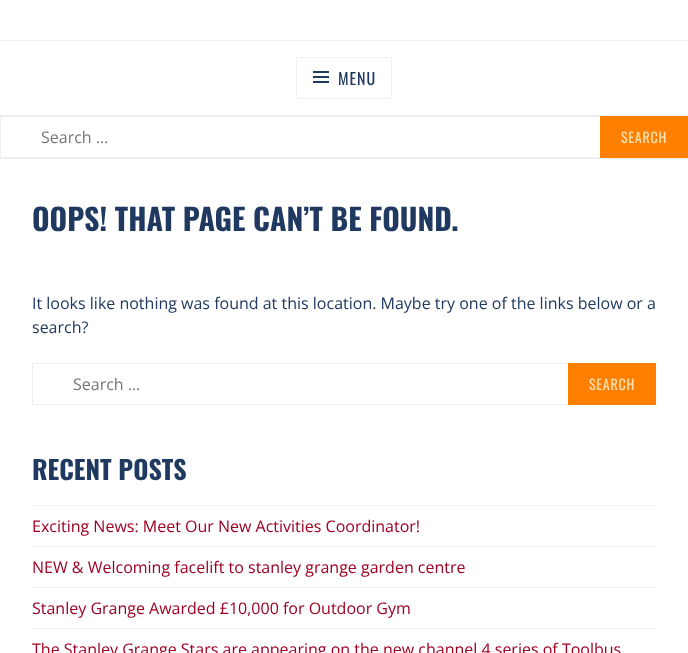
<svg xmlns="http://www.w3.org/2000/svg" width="688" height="653">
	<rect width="100%" height="100%" fill="#FFFFFF" />
	<rect x="0" y="158" width="688" height="1" fill="#EFEFEF" />
	<rect x="0" y="40" width="688" height="1" fill="#EFEFEF" />
	<rect x="0" y="115" width="688" height="1" fill="#EFEFEF" />
	<rect x="296.5" y="57.5" width="95" height="41" fill="none" stroke="#EFEFEF" />
	<image x="313" y="71" width="16" height="12" href="assets/img1.png" />
	<text x="338" y="85" font-family="Oswald" font-size="16" letter-spacing="1" fill="#1F3960">MENU</text>
	<rect x="0.5" y="116.5" width="687" height="41" fill="none" stroke="#EFEFEF" />
	<text x="41" y="143" font-family="Open Sans" font-size="16" fill="#757575">Search …</text>
	<rect x="600" y="116" width="88" height="42" fill="#FF8000" />
	<text x="621" y="143" font-family="Oswald" font-size="14" letter-spacing="0.75" fill="#FFE0AE">SEARCH</text>
	<text x="32" y="231" font-family="Oswald" font-size="30" font-weight="700" fill="#1F3960">OOPS! THAT PAGE CAN’T BE FOUND.</text>
	<g font-family="Open Sans" font-size="16" fill="#1F3960">
		<text x="32" y="309">It looks like nothing was found at this location. Maybe try one of the links below or a</text>
		<text x="32" y="333">search?</text>
	</g>
	<rect x="32.5" y="363.5" width="623" height="41" fill="none" stroke="#EFEFEF" />
	<text x="73" y="390" font-family="Open Sans" font-size="16" fill="#757575">Search …</text>
	<rect x="568" y="363" width="88" height="42" fill="#FF8000" />
	<text x="589" y="390" font-family="Oswald" font-size="14" letter-spacing="0.75" fill="#FFE0AE">SEARCH</text>
	<text x="32" y="480" font-family="Oswald" font-size="26" font-weight="700" fill="#1F3960">RECENT POSTS</text>
	<rect x="32" y="505" width="624" height="1" fill="#EFEFEF" />
	<rect x="32" y="546" width="624" height="1" fill="#EFEFEF" />
	<text x="32" y="532" font-family="Open Sans" font-size="16" fill="#9E0022">Exciting News: Meet Our New Activities Coordinator!</text>
	<rect x="32" y="587" width="624" height="1" fill="#EFEFEF" />
	<text x="32" y="573" font-family="Open Sans" font-size="16" fill="#9E0022">NEW &amp; Welcoming facelift to stanley grange garden centre</text>
	<rect x="32" y="628" width="624" height="1" fill="#EFEFEF" />
	<g font-family="Open Sans" font-size="16" fill="#9E0022">
		<text x="32" y="614">Stanley Grange Awarded £10,000 for Outdoor Gym</text>
		<text x="32" y="655">The Stanley Grange Stars are appearing on the new channel 4 series of Toolbus</text>
	</g>
</svg>
